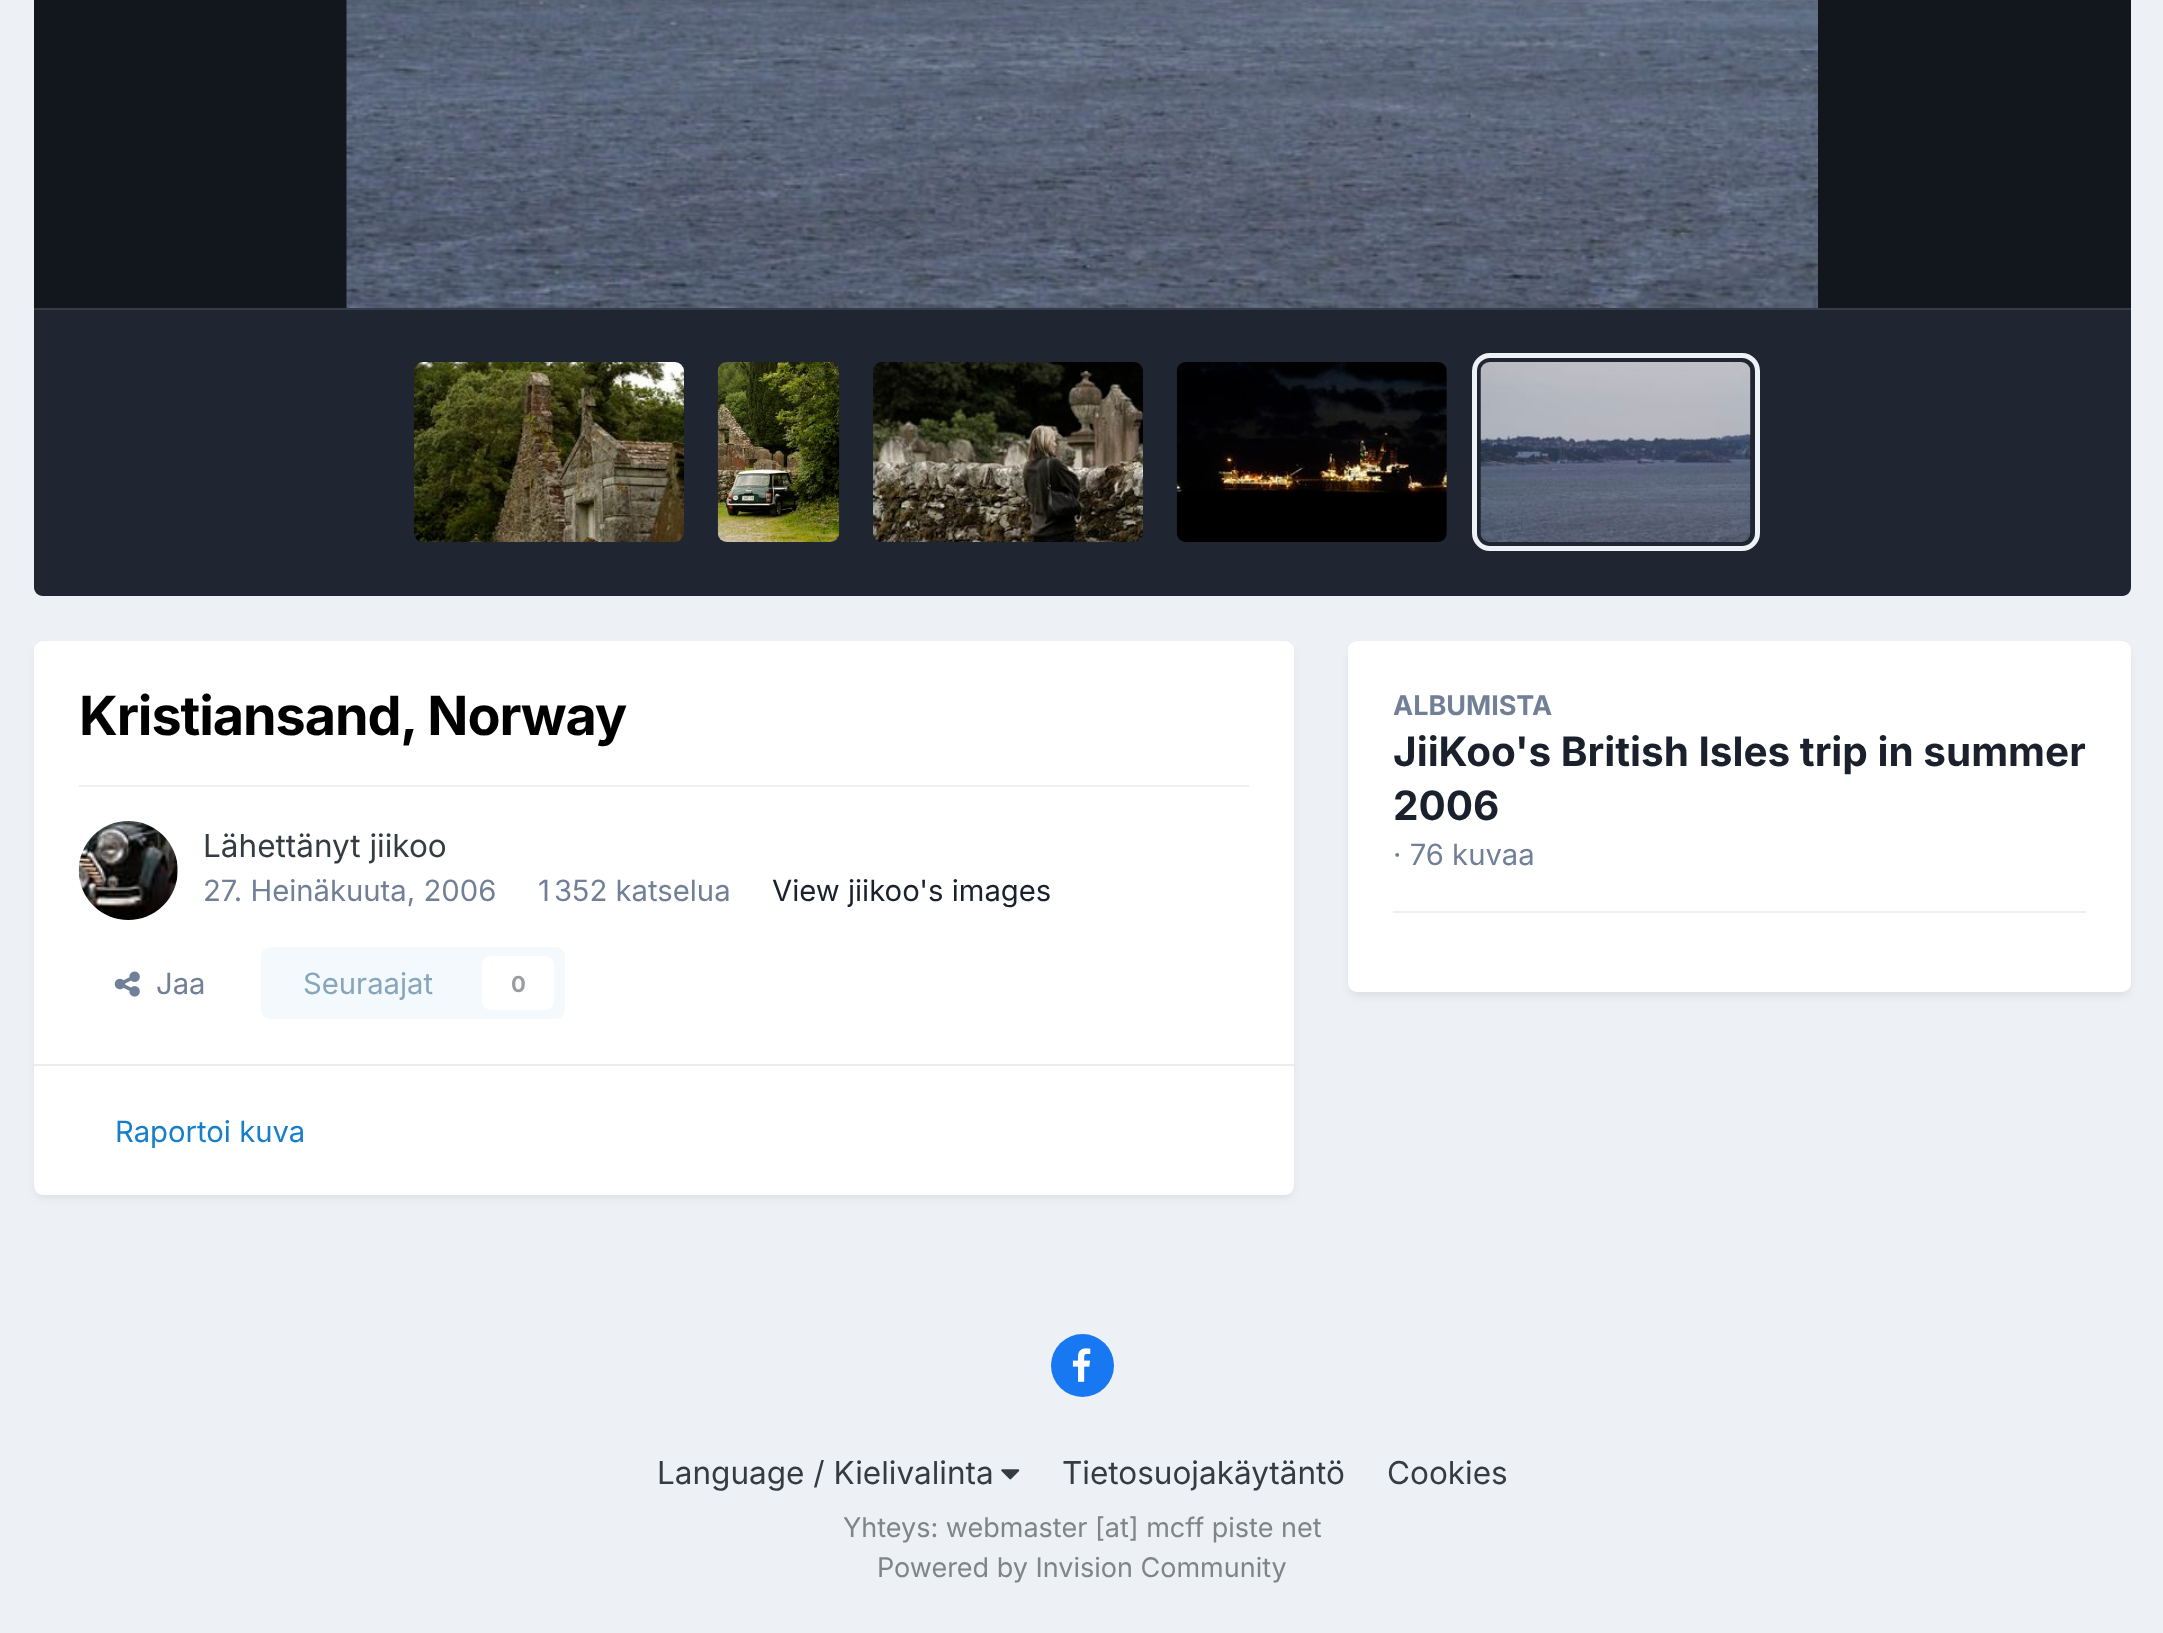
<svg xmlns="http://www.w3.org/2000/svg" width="2163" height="1633">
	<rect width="100%" height="100%" fill="#EDF0F4" />
	<rect x="34" y="0" width="2097" height="308" fill="#12161D" />
	<image x="346" y="0" width="1472" height="308" href="assets/img1.png" />
	<path d="M34 308H2131V587C2131 592 2127 596 2122 596H43C38 596 34 592 34 587Z" fill="#2D3748" />
	<path d="M34 308H2131V587C2131 592 2127 596 2122 596H43C38 596 34 592 34 587Z" fill="#000000" fill-opacity="0.3" />
	<rect x="34" y="308" width="2097" height="2" fill="#363C47" />
	<rect x="414" y="362" width="270" height="180" rx="9" fill="#141414" />
	<rect x="414" y="362" width="270" height="180" rx="9" fill="#2D3748" fill-opacity="0.3" />
	<image x="414" y="362" width="270" height="180" href="assets/img2.png" />
	<image x="717" y="362" width="123" height="180" href="assets/img3.png" />
	<rect x="873" y="362" width="270" height="180" rx="9" fill="#141414" />
	<rect x="873" y="362" width="270" height="180" rx="9" fill="#2D3748" fill-opacity="0.3" />
	<image x="873" y="362" width="270" height="180" href="assets/img4.png" />
	<rect x="1177" y="362" width="270" height="180" rx="9" fill="#141414" />
	<rect x="1177" y="362" width="270" height="180" rx="9" fill="#2D3748" fill-opacity="0.3" />
	<image x="1176" y="362" width="271" height="180" href="assets/img5.png" />
	<rect x="1481" y="362" width="270" height="180" rx="9" fill="#141414" />
	<rect x="1481" y="362" width="270" height="180" rx="9" fill="#2D3748" fill-opacity="0.3" />
	<rect x="1474.5" y="355.5" width="283" height="193" rx="15.5" fill="none" stroke="#EDF2F7" stroke-width="5" />
	<image x="1480" y="362" width="271" height="180" href="assets/img6.png" />
	<rect x="36" y="648" width="1256" height="549" rx="7" fill="#2D3748" fill-opacity="0.1" filter="blur(4.5px)" />
	<rect x="34" y="641" width="1260" height="554" rx="9" fill="#FFFFFF" />
	<text x="79" y="735" font-family="Inter" font-size="54" font-weight="700" letter-spacing="-1.1" fill="#000000">Kristiansand, Norway</text>
	<rect x="79" y="785" width="1170" height="2" fill="#EFEFF0" />
	<image x="78" y="821" width="100" height="99" href="assets/img7.png" />
	<text x="203" y="857" font-family="Inter" font-size="31.5" fill="#353C41">Lähettänyt jiikoo</text>
	<g font-family="Inter" font-size="29.25" fill="#718096">
		<text x="203" y="901">27. Heinäkuuta, 2006</text>
		<text x="538" y="901">1 352 katselua</text>
	</g>
	<text x="772" y="901" font-family="Inter" font-size="29.25" fill="#1A202C">View jiikoo's images</text>
	<image x="114" y="971" width="26" height="26" href="assets/img8.png" />
	<text x="156" y="994" font-family="Inter" font-size="29.25" fill="#718096">Jaa</text>
	<rect x="261" y="947" width="304" height="72" rx="9" fill="#F4F9FD" />
	<text x="303" y="994" font-family="Inter" font-size="29.25" fill="#87A6BC">Seuraajat</text>
	<rect x="482" y="956" width="72" height="54" rx="9" fill="#FFFFFF" />
	<text x="511" y="992" font-family="Inter" font-size="22" font-weight="700" fill="#9A9EA0">0</text>
	<rect x="34" y="1064" width="1260" height="2" fill="#EBECEC" />
	<text x="115" y="1142" font-family="Inter" font-size="29.25" fill="#177EC9">Raportoi kuva</text>
	<rect x="1350" y="648" width="779" height="347" rx="7" fill="#2D3748" fill-opacity="0.1" filter="blur(4.5px)" />
	<rect x="1348" y="641" width="783" height="351" rx="9" fill="#FFFFFF" />
	<text x="1393" y="715" font-family="Inter" font-size="27" font-weight="700" fill="#718096">ALBUMISTA</text>
	<g font-family="Inter" font-size="40.5" font-weight="700" fill="#1A202C">
		<text x="1393" y="766">JiiKoo's British Isles trip in summer</text>
		<text x="1393" y="820">2006</text>
	</g>
	<text x="1393" y="865" font-family="Inter" font-size="29.25" fill="#718096">· 76 kuvaa</text>
	<rect x="1393" y="911" width="693" height="2" fill="#EFEFF0" />
	<circle cx="1082.5" cy="1365.5" r="31.5" fill="#1778F2" />
	<image x="1072" y="1348" width="19" height="34" href="assets/img9.png" />
	<text x="657" y="1484" font-family="Inter" font-size="31.5" fill="#353C41">Language / Kielivalinta</text>
	<image x="1001" y="1469" width="19" height="11" href="assets/img10.png" />
	<g font-family="Inter" font-size="31.5" fill="#353C41">
		<text x="1062" y="1484">Tietosuojakäytäntö</text>
		<text x="1387" y="1484">Cookies</text>
	</g>
	<g font-family="Inter" font-size="27" fill="#7F8489">
		<text x="843" y="1537">Yhteys: webmaster [at] mcff piste net</text>
		<text x="877" y="1577">Powered by Invision Community</text>
	</g>
</svg>
